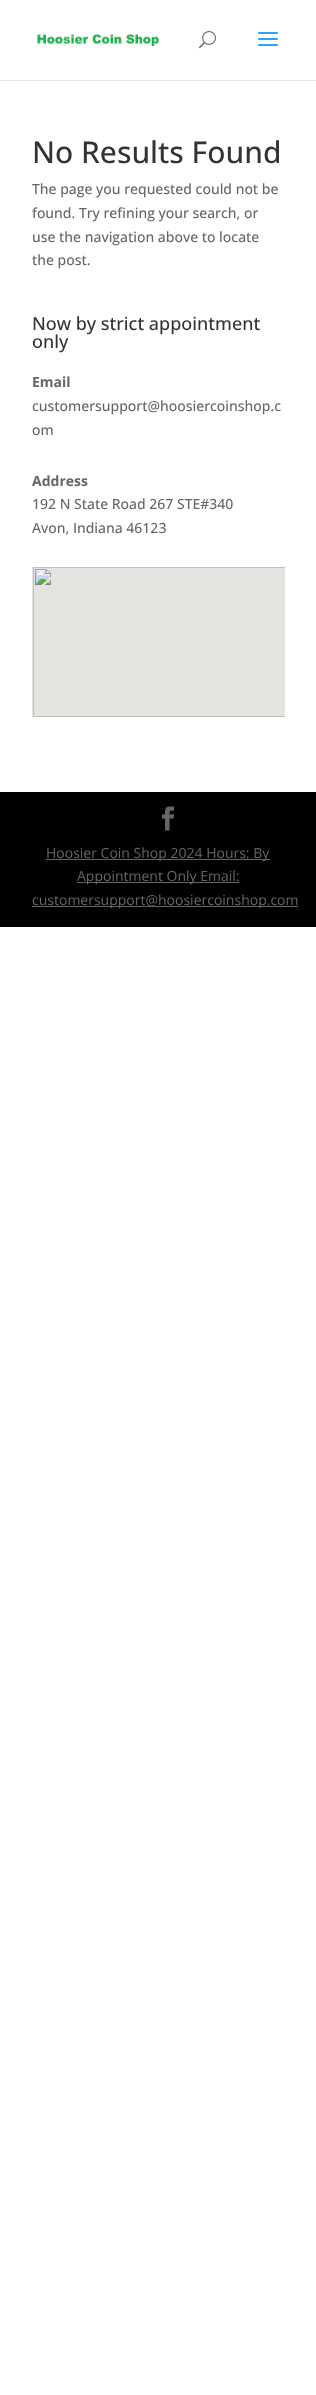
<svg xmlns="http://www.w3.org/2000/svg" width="316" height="2395">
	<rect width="100%" height="100%" fill="#FFFFFF" />
	<rect x="0" y="80" width="316" height="1" fill="#E6E6E6" />
	<image x="37" y="34" width="122" height="12" href="assets/img1.png" />
	<image x="199" y="31" width="17" height="18" href="assets/img2.png" />
	<image x="258" y="32" width="20" height="14" href="assets/img3.png" />
	<text x="32" y="163" font-family="Open Sans" font-size="30" font-weight="500" fill="#333333">No Results Found</text>
	<g font-family="Open Sans" font-size="14" font-weight="500" fill="#666666">
		<text x="32" y="194">The page you requested could not be</text>
		<text x="32" y="218">found. Try refining your search, or</text>
		<text x="32" y="242">use the navigation above to locate</text>
		<text x="32" y="265">the post.</text>
	</g>
	<g font-family="Open Sans" font-size="18" font-weight="500" fill="#333333">
		<text x="32" y="330">Now by strict appointment</text>
		<text x="32" y="348">only</text>
	</g>
	<text x="32" y="387" font-family="Open Sans" font-size="14" font-weight="700" fill="#666666">Email</text>
	<g font-family="Open Sans" font-size="14" font-weight="500" fill="#666666">
		<text x="32" y="411">customersupport@hoosiercoinshop.c</text>
		<text x="32" y="435">om</text>
	</g>
	<text x="32" y="486" font-family="Open Sans" font-size="14" font-weight="700" fill="#666666">Address</text>
	<g font-family="Open Sans" font-size="14" font-weight="500" fill="#666666">
		<text x="32" y="509">192 N State Road 267 STE#340</text>
		<text x="32" y="533">Avon, Indiana 46123</text>
	</g>
	<image x="32" y="567" width="253" height="150" href="assets/img4.png" />
	<rect x="0" y="792" width="316" height="135" fill="#000000" />
	<image x="162" y="806" width="12" height="25" href="assets/img5.png" />
	<rect x="46" y="859" width="224" height="1" fill="#666666" />
	<text x="46" y="858" font-family="Open Sans" font-size="14" fill="#666666">Hoosier Coin Shop 2024 Hours: By</text>
	<rect x="77" y="882" width="162" height="1" fill="#666666" />
	<text x="77" y="881" font-family="Open Sans" font-size="14" fill="#666666">Appointment Only Email:</text>
	<rect x="32" y="906" width="266" height="1" fill="#666666" />
	<text x="32" y="905" font-family="Open Sans" font-size="14" fill="#666666">customersupport@hoosiercoinshop.com</text>
</svg>
